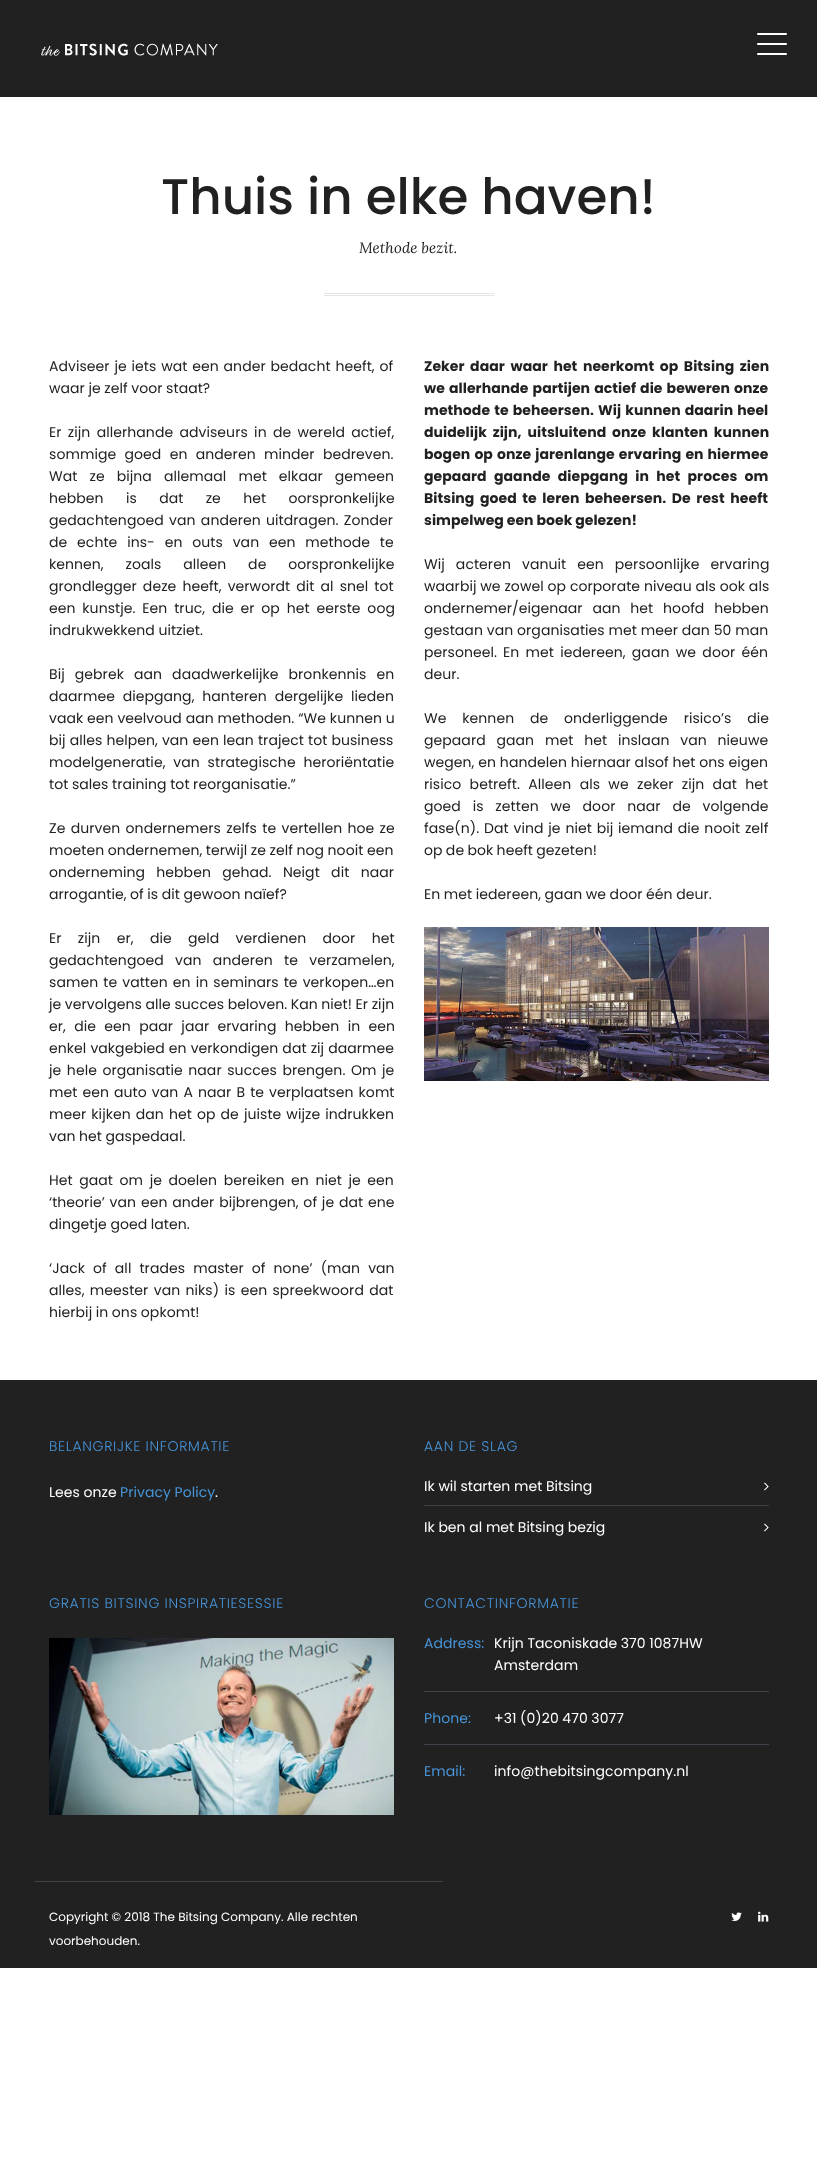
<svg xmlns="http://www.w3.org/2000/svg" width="817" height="2162">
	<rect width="100%" height="100%" fill="#FFFFFF" />
	<rect x="0" y="0" width="817" height="97" fill="#212121" />
	<image x="41" y="43" width="177" height="13" href="assets/img1.png" />
	<rect x="757" y="43" width="30" height="2" rx="1" fill="#FFFFFF" />
	<rect x="757" y="33" width="30" height="2" rx="1" fill="#FFFFFF" />
	<rect x="757" y="53" width="30" height="2" rx="1" fill="#FFFFFF" />
	<text x="161" y="214" font-family="Poppins" font-size="50" font-weight="500" fill="#212121">Thuis in elke haven!</text>
	<text x="359" y="253" word-spacing="-0.25" font-family="Lora" font-size="15" font-style="italic" letter-spacing="0.07" fill="#212121">Methode bezit.</text>
	<rect x="324" y="293" width="170" height="1" fill="#E4E6E8" />
	<rect x="324" y="295" width="170" height="1" fill="#E4E6E8" />
	<g font-family="Poppins" font-size="14" letter-spacing="0.07" fill="#212121">
		<text x="49" y="371" word-spacing="1">Adviseer je iets wat een ander bedacht heeft, of</text>
		<text x="49" y="393" word-spacing="-0.25">waar je zelf voor staat?</text>
		<text x="49" y="437" word-spacing="2.5">Er zijn allerhande adviseurs in de wereld actief,</text>
		<text x="49" y="459" word-spacing="4.5">sommige goed en anderen minder bedreven.</text>
		<text x="49" y="481" word-spacing="8.25">Wat ze bijna allemaal met elkaar gemeen</text>
		<text x="49" y="503" word-spacing="18.5">hebben is dat ze het oorspronkelijke</text>
		<text x="49" y="525" word-spacing="1.5">gedachtengoed van anderen uitdragen. Zonder</text>
		<text x="49" y="547" word-spacing="6">de echte ins- en outs van een methode te</text>
		<text x="49" y="569" word-spacing="18">kennen, zoals alleen de oorspronkelijke</text>
		<text x="49" y="591" word-spacing="2.25">grondlegger deze heeft, verwordt dit al snel tot</text>
		<text x="49" y="613" word-spacing="3">een kunstje. Een truc, die er op het eerste oog</text>
		<text x="49" y="635" word-spacing="-0.25">indrukwekkend uitziet.</text>
		<text x="49" y="679" word-spacing="6.25">Bij gebrek aan daadwerkelijke bronkennis en</text>
		<text x="49" y="701" word-spacing="4">daarmee diepgang, hanteren dergelijke lieden</text>
		<text x="49" y="723">vaak een veelvoud aan methoden. “We kunnen u</text>
		<text x="49" y="745" word-spacing="0.25">bij alles helpen, van een lean traject tot business</text>
		<text x="49" y="767" word-spacing="4">modelgeneratie, van strategische heroriëntatie</text>
		<text x="49" y="789" word-spacing="-0.25">tot sales training tot reorganisatie.”</text>
		<text x="49" y="833" word-spacing="1.5">Ze durven ondernemers zelfs te vertellen hoe ze</text>
		<text x="49" y="855" word-spacing="-0.25">moeten ondernemen, terwijl ze zelf nog nooit een</text>
		<text x="49" y="877" word-spacing="7.5">onderneming hebben gehad. Neigt dit naar</text>
		<text x="49" y="899" word-spacing="-0.25">arrogantie, of is dit gewoon naïef?</text>
		<text x="49" y="943" word-spacing="12.5">Er zijn er, die geld verdienen door het</text>
		<text x="49" y="965" word-spacing="7.5">gedachtengoed van anderen te verzamelen,</text>
		<text x="49" y="987" word-spacing="1.25">samen te vatten en in seminars te verkopen…en</text>
		<text x="49" y="1009" word-spacing="-0.25">je vervolgens alle succes beloven. Kan niet! Er zijn</text>
		<text x="49" y="1031" word-spacing="4.5">er, die een paar jaar ervaring hebben in een</text>
		<text x="49" y="1053" word-spacing="0.25">enkel vakgebied en verkondigen dat zij daarmee</text>
		<text x="49" y="1075" word-spacing="1.75">je hele organisatie naar succes brengen. Om je</text>
		<text x="49" y="1097" word-spacing="1.25">met een auto van A naar B te verplaatsen komt</text>
		<text x="49" y="1119" word-spacing="1.25">meer kijken dan het op de juiste wijze indrukken</text>
		<text x="49" y="1141" word-spacing="-0.25">van het gaspedaal.</text>
		<text x="49" y="1185" word-spacing="2.75">Het gaat om je doelen bereiken en niet je een</text>
		<text x="49" y="1207" word-spacing="1">‘theorie’ van een ander bijbrengen, of je dat ene</text>
		<text x="49" y="1229" word-spacing="-0.25">dingetje goed laten.</text>
		<text x="49" y="1273" word-spacing="4.25">‘Jack of all trades master of none’ (man van</text>
		<text x="49" y="1295" word-spacing="1.5">alles, meester van niks) is een spreekwoord dat</text>
		<text x="49" y="1317" word-spacing="-0.25">hierbij in ons opkomt!</text>
	</g>
	<g font-family="Poppins" font-size="14" font-weight="700" letter-spacing="0.07" fill="#212121">
		<text x="424" y="371" word-spacing="2.5">Zeker daar waar het neerkomt op Bitsing zien</text>
		<text x="424" y="393" word-spacing="1">we allerhande partijen actief die beweren onze</text>
		<text x="424" y="415" word-spacing="1">methode te beheersen. Wij kunnen daarin heel</text>
		<text x="424" y="437" word-spacing="2.75">duidelijk zijn, uitsluitend onze klanten kunnen</text>
		<text x="424" y="459" word-spacing="1">bogen op onze jarenlange ervaring en hiermee</text>
		<text x="424" y="481" word-spacing="4.25">gepaard gaande diepgang in het proces om</text>
		<text x="424" y="503" word-spacing="2.5">Bitsing goed te leren beheersen. De rest heeft</text>
		<text x="424" y="525" word-spacing="-0.25">simpelweg een boek gelezen!</text>
	</g>
	<g font-family="Poppins" font-size="14" letter-spacing="0.07" fill="#212121">
		<text x="424" y="569" word-spacing="7.25">Wij acteren vanuit een persoonlijke ervaring</text>
		<text x="424" y="591">waarbij we zowel op corporate niveau als ook als</text>
		<text x="424" y="613" word-spacing="6">ondernemer/eigenaar aan het hoofd hebben</text>
		<text x="424" y="635">gestaan van organisaties met meer dan 50 man</text>
		<text x="424" y="657">personeel.</text>
		<text x="503" y="657" word-spacing="2.5">En met iedereen, gaan we door één</text>
		<text x="424" y="679">deur.</text>
		<text x="424" y="723" word-spacing="12">We kennen de onderliggende risico’s die</text>
		<text x="424" y="745" word-spacing="7">gepaard gaan met het inslaan van nieuwe</text>
		<text x="424" y="767">wegen, en handelen hiernaar alsof het ons eigen</text>
		<text x="424" y="789" word-spacing="4.5">risico betreft. Alleen als we zeker zijn dat het</text>
		<text x="424" y="811" word-spacing="8">goed is zetten we door naar de volgende</text>
		<text x="424" y="833" word-spacing="1">fase(n). Dat vind je niet bij iemand die nooit zelf</text>
		<text x="424" y="855" word-spacing="-0.5">op de bok heeft gezeten!</text>
		<text x="424" y="899" word-spacing="-0.25">En met iedereen, gaan we door één deur.</text>
	</g>
	<image x="424" y="927" width="345" height="154" href="assets/img2.png" />
	<rect x="0" y="1380" width="817" height="588" fill="#212121" />
	<text x="49" y="1451" font-family="Poppins" font-size="14" font-weight="300" letter-spacing="0.7" fill="#4794D8">BELANGRIJKE INFORMATIE</text>
	<text x="49" y="1497" word-spacing="-0.25" font-family="Poppins" font-size="14" letter-spacing="0.07" fill="#FFFFFF">Lees onze</text>
	<text x="120" y="1497" word-spacing="-0.25" font-family="Poppins" font-size="14" letter-spacing="0.07" fill="#4794D8">Privacy Policy</text>
	<text x="215" y="1497" font-family="Poppins" font-size="14" letter-spacing="0.07" fill="#FFFFFF">.</text>
	<text x="424" y="1451" font-family="Poppins" font-size="14" font-weight="300" letter-spacing="0.7" fill="#4794D8">AAN DE SLAG</text>
	<rect x="424" y="1505" width="345" height="1" fill="#3C3E42" />
	<text x="424" y="1491" font-family="Poppins" font-size="14" fill="#FFFFFF">Ik wil starten met Bitsing</text>
	<image x="764" y="1482" width="5" height="9" href="assets/img3.png" />
	<text x="424" y="1532" font-family="Poppins" font-size="14" fill="#FFFFFF">Ik ben al met Bitsing bezig</text>
	<image x="764" y="1523" width="5" height="9" href="assets/img3.png" />
	<text x="49" y="1608" font-family="Poppins" font-size="14" font-weight="300" letter-spacing="0.7" fill="#4794D8">GRATIS BITSING INSPIRATIESESSIE</text>
	<image x="49" y="1638" width="345" height="177" href="assets/img4.png" />
	<text x="424" y="1608" font-family="Poppins" font-size="14" font-weight="300" letter-spacing="0.7" fill="#4794D8">CONTACTINFORMATIE</text>
	<rect x="424" y="1691" width="345" height="1" fill="#40444A" />
	<text x="424" y="1648" font-family="Poppins" font-size="14" letter-spacing="0.07" fill="#4794D8">Address:</text>
	<g font-family="Poppins" font-size="14" letter-spacing="0.07" fill="#FFFFFF">
		<text x="494" y="1648" word-spacing="-0.25">Krijn Taconiskade 370 1087HW</text>
		<text x="494" y="1670">Amsterdam</text>
	</g>
	<rect x="424" y="1744" width="345" height="1" fill="#40444A" />
	<text x="424" y="1723" font-family="Poppins" font-size="14" letter-spacing="0.07" fill="#4794D8">Phone:</text>
	<text x="494" y="1723" word-spacing="-0.25" font-family="Poppins" font-size="14" letter-spacing="0.07" fill="#FFFFFF">+31 (0)20 470 3077</text>
	<text x="424" y="1776" font-family="Poppins" font-size="14" letter-spacing="0.07" fill="#4794D8">Email:</text>
	<text x="494" y="1776" font-family="Poppins" font-size="14" letter-spacing="0.07" fill="#FFFFFF">info@thebitsingcompany.nl</text>
	<rect x="34" y="1881" width="409" height="1" fill="#40444A" />
	<g font-family="Poppins" font-size="12" fill="#FFFFFF">
		<text x="49" y="1921">Copyright © 2018 The Bitsing Company. Alle rechten</text>
		<text x="49" y="1945">voorbehouden.</text>
	</g>
	<image x="731" y="1912" width="11" height="9" href="assets/img5.png" />
	<image x="758" y="1911" width="11" height="11" href="assets/img6.png" />
</svg>
